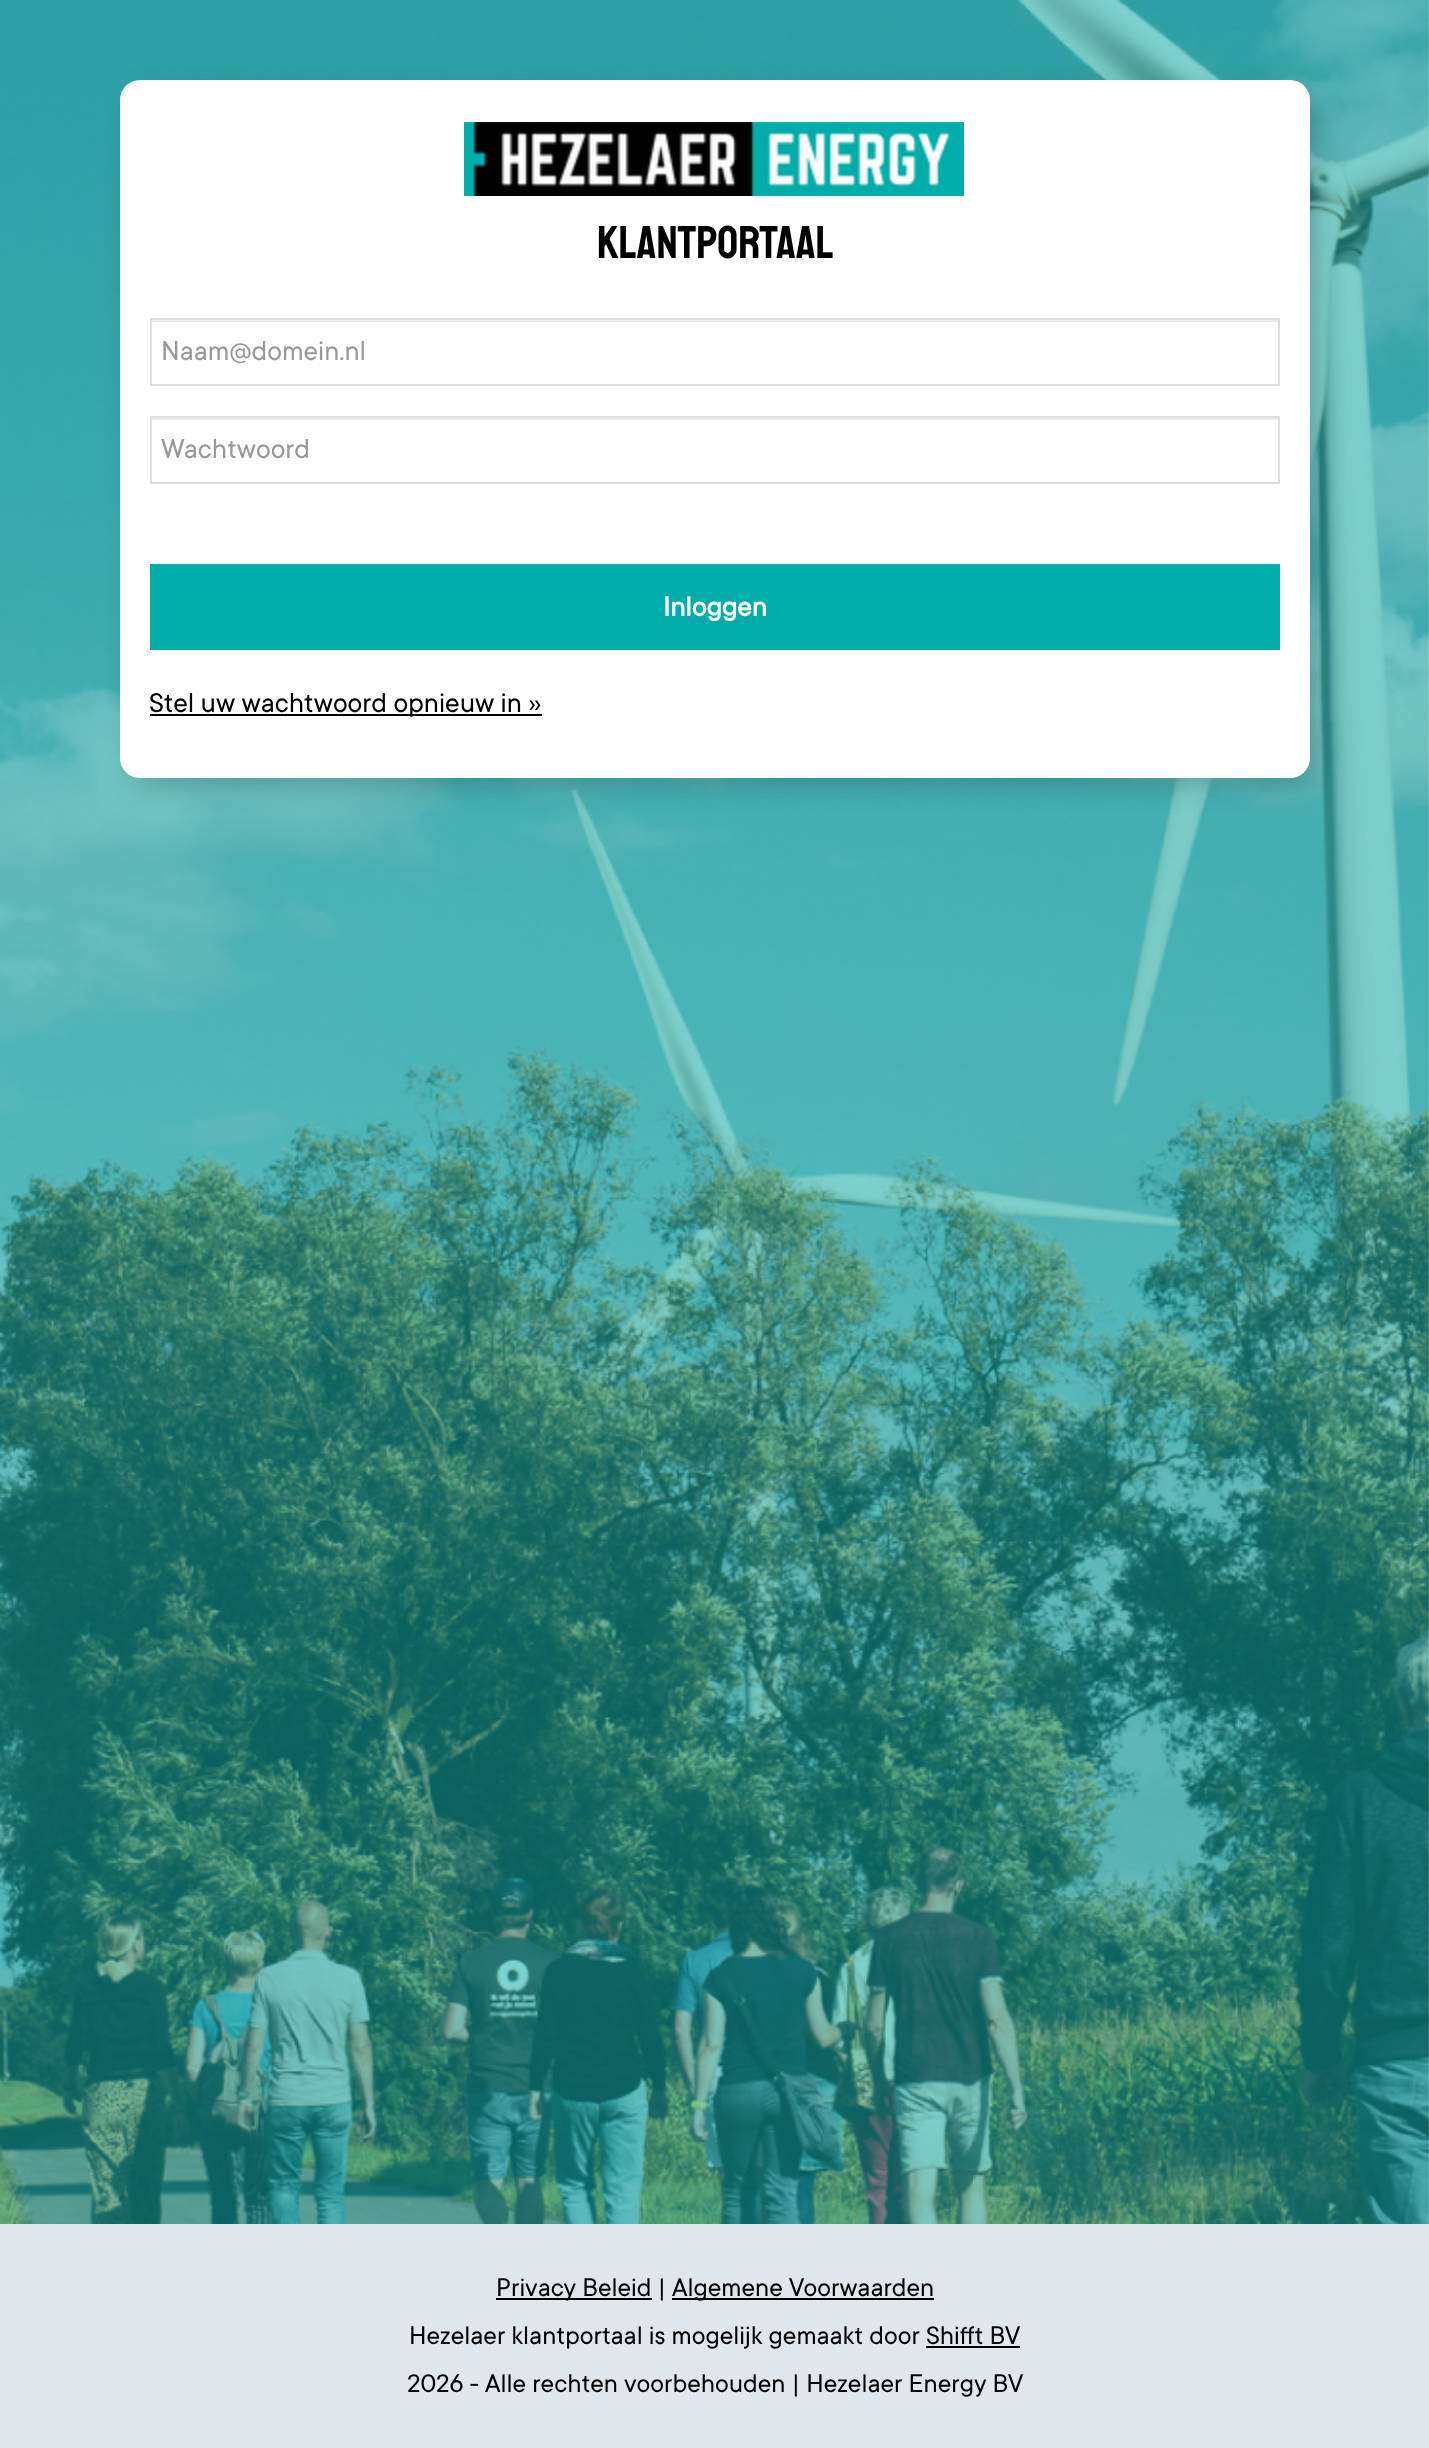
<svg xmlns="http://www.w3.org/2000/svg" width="1429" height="2448">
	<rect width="100%" height="100%" fill="#FFFFFF" />
	<image x="0" y="0" width="1429" height="2224" href="assets/img1.png" />
	<rect x="136" y="96" width="1178" height="686" rx="14" fill="#000000" fill-opacity="0.24" filter="blur(15px)" />
	<rect x="120" y="80" width="1190" height="698" rx="20" fill="#FFFFFF" />
	<image x="464" y="122" width="500" height="74" href="assets/img2.png" />
	<text x="597" y="258" font-family="Staatliches" font-size="46" fill="#000000">Klantportaal</text>
	<rect x="152" y="320" width="1126" height="2" fill="#ECECEC" />
	<rect x="151" y="319" width="1128" height="66" fill="none" stroke="#DDDDDD" stroke-width="2" />
	<text x="161" y="360" font-family="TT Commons" font-size="30" fill="#999999">Naam@domein.nl</text>
	<rect x="152" y="418" width="1126" height="2" fill="#ECECEC" />
	<rect x="151" y="417" width="1128" height="66" fill="none" stroke="#DDDDDD" stroke-width="2" />
	<text x="161" y="458" font-family="TT Commons" font-size="30" fill="#999999">Wachtwoord</text>
	<rect x="150" y="564" width="1130" height="86" fill="#00ACA9" />
	<text x="663" y="616" font-family="TT Commons" font-size="30" font-weight="700" fill="#FFFFFF">Inloggen</text>
	<rect x="150" y="714" width="392" height="2" fill="#000000" />
	<text x="149" y="712" font-family="TT Commons" font-size="30" fill="#000000">Stel uw wachtwoord opnieuw in »</text>
	<rect x="0" y="2224" width="1429" height="224" fill="#E0E7EC" />
	<rect x="496" y="2298" width="156" height="2" fill="#000000" />
	<text x="496" y="2296" font-family="TT Commons" font-size="28" fill="#000000">Privacy Beleid |</text>
	<rect x="672" y="2298" width="262" height="2" fill="#000000" />
	<g font-family="TT Commons" font-size="28" fill="#000000">
		<text x="672" y="2296">Algemene Voorwaarden</text>
		<text x="409" y="2344">Hezelaer klantportaal is mogelijk gemaakt door Shifft BV</text>
	</g>
	<rect x="926" y="2346" width="94" height="2" fill="#000000" />
	<text x="407" y="2392" font-family="TT Commons" font-size="28" fill="#000000">2026 - Alle rechten voorbehouden | Hezelaer Energy BV</text>
</svg>
